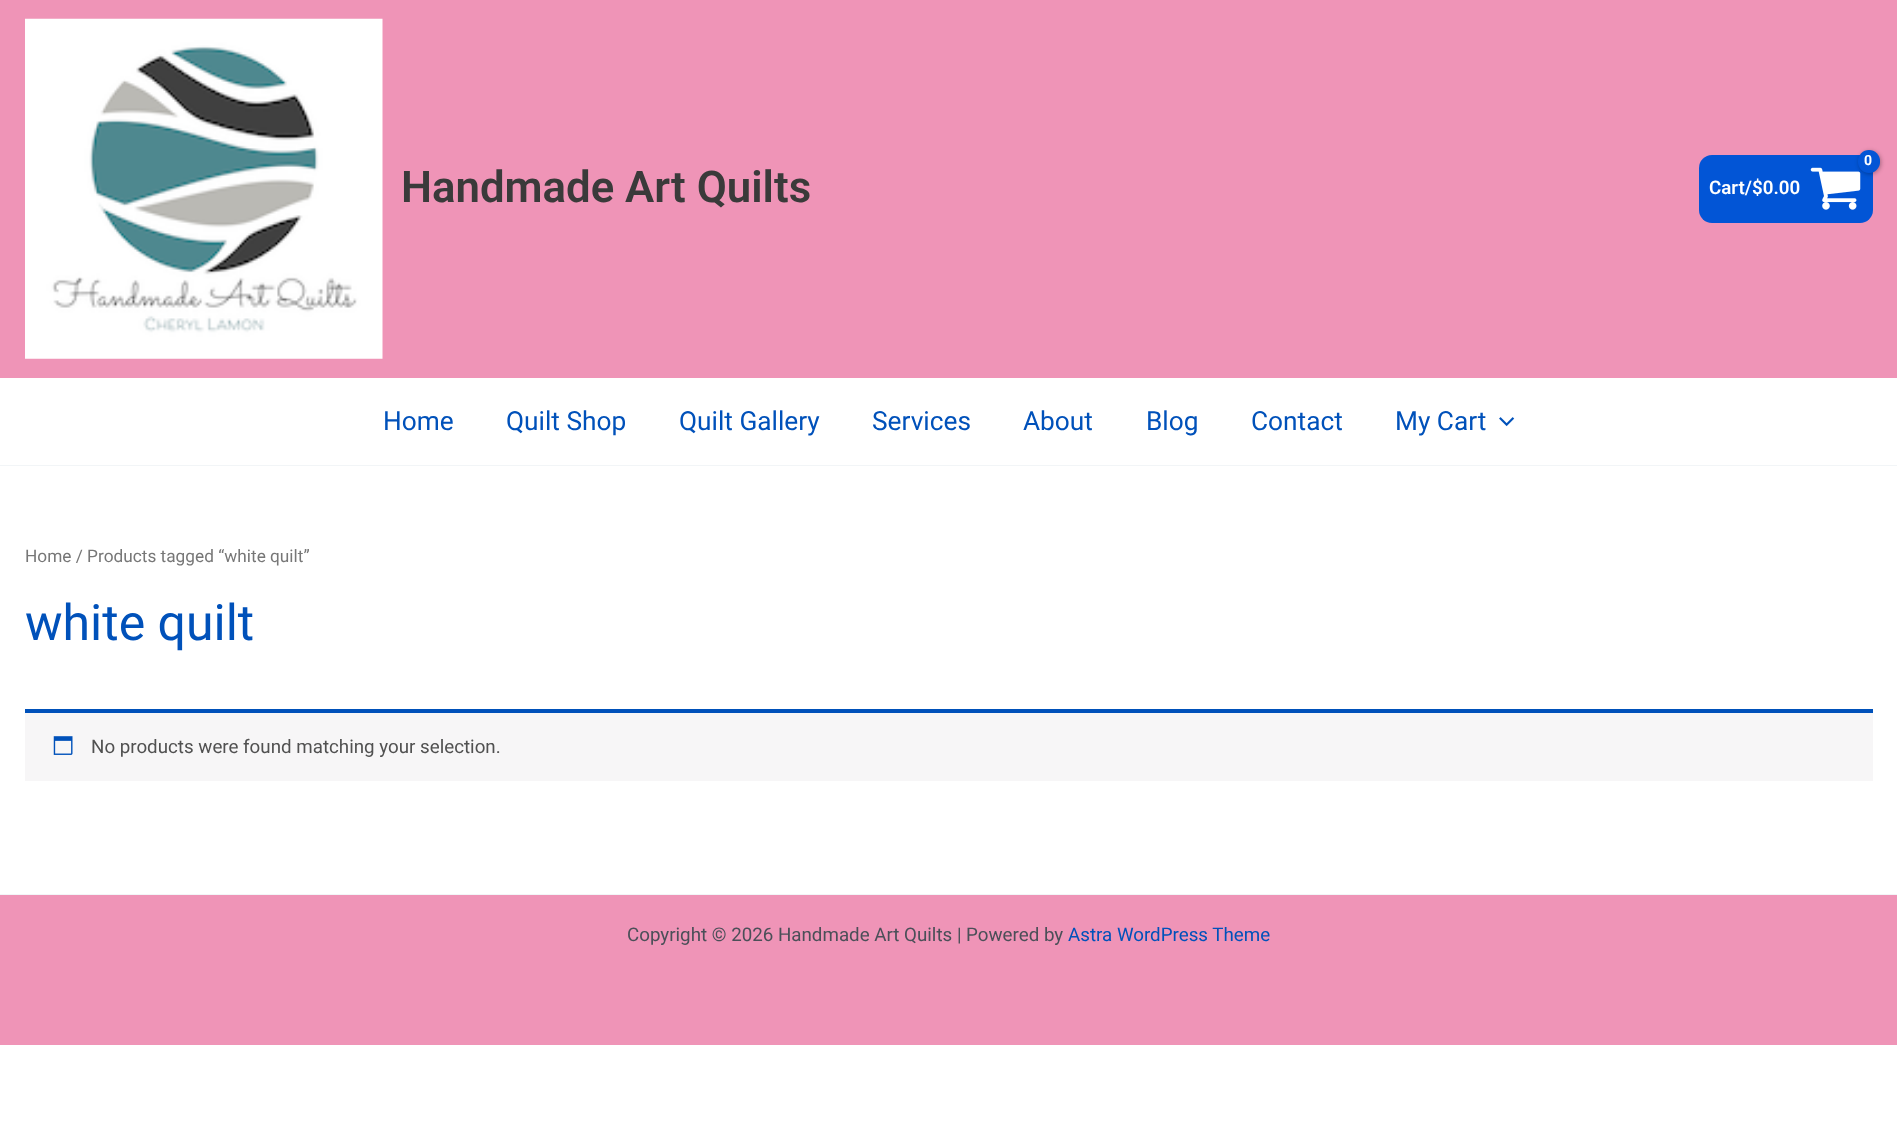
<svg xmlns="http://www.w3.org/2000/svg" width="1897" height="1143">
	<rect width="100%" height="100%" fill="#FFFFFF" />
	<rect x="0" y="0" width="1897" height="378" fill="#EF94B7" />
	<image x="25" y="18" width="358" height="341" href="assets/img1.png" />
	<text x="401" y="202" font-family="Roboto" font-size="43.75" font-weight="600" fill="#3A3A3A">Handmade Art Quilts</text>
	<rect x="1699" y="155" width="174" height="68" rx="13" fill="#0255D6" />
	<image x="1810" y="167" width="51" height="43" href="assets/img2.png" />
	<rect x="1859" y="151" width="22" height="23" rx="11" fill="#000000" fill-opacity="0.3" filter="blur(2px)" />
	<rect x="1858" y="150" width="22" height="23" rx="11" fill="#0255D6" />
	<text x="1864" y="165" font-family="Roboto" font-size="14" font-weight="700" letter-spacing="-1" fill="#FFFFFF">0</text>
	<text x="1709" y="194" font-family="Roboto" font-size="18.75" font-weight="600" fill="#FFFFFF">Cart/$0.00</text>
	<rect x="0" y="465" width="1897" height="1" fill="#F2F5F7" />
	<g font-family="Roboto" font-size="26.25" fill="#0051BA">
		<text x="383" y="430">Home</text>
		<text x="506" y="430">Quilt Shop</text>
		<text x="679" y="430">Quilt Gallery</text>
		<text x="872" y="430">Services</text>
		<text x="1023" y="430">About</text>
		<text x="1146" y="430">Blog</text>
		<text x="1251" y="430">Contact</text>
		<text x="1395" y="430">My Cart</text>
	</g>
	<image x="1499" y="417" width="16" height="10" href="assets/img3.png" />
	<text x="25" y="562" font-family="Roboto" font-size="17.25" fill="#777777">Home / Products tagged “white quilt”</text>
	<text x="25" y="640" font-family="Roboto" font-size="50" fill="#0051BA">white quilt</text>
	<rect x="25" y="713" width="1848" height="68" fill="#F7F6F7" />
	<rect x="25" y="709" width="1848" height="4" fill="#0051BA" />
	<image x="53" y="736" width="20" height="19" href="assets/img4.png" />
	<text x="91" y="753" font-family="Roboto" font-size="18.75" fill="#515151">No products were found matching your selection.</text>
	<rect x="0" y="895" width="1897" height="150" fill="#EF94B7" />
	<rect x="0" y="894" width="1897" height="1" fill="#F2F5F7" />
	<text x="627" y="941" font-family="Roboto" font-size="18.75" fill="#4B4F58">Copyright © 2026 Handmade Art Quilts | Powered by</text>
	<text x="1068" y="941" font-family="Roboto" font-size="18.75" fill="#0051BA">Astra WordPress Theme</text>
</svg>
